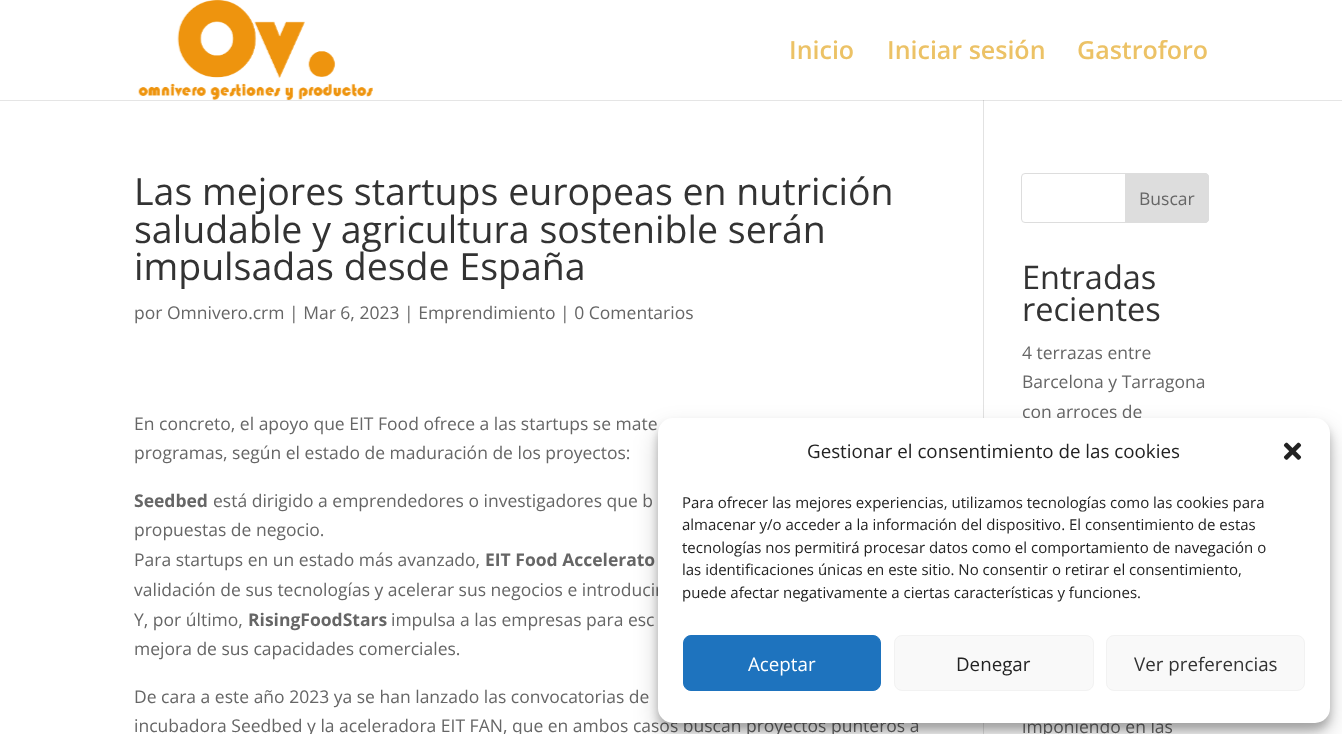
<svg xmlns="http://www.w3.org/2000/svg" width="1342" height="734">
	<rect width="100%" height="100%" fill="#FFFFFF" />
	<rect x="983" y="100" width="1" height="634" fill="#E2E2E2" />
	<path d="M0 100V101H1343V1H1342V100Z" fill="#000000" fill-opacity="0.1" />
	<image x="138" y="0" width="235" height="100" href="assets/img1.png" />
	<g font-family="Open Sans" font-size="25" font-weight="600" fill="#ECC266">
		<text x="789" y="59">Inicio</text>
		<text x="887" y="59">Iniciar sesión</text>
		<text x="1077" y="59">Gastroforo</text>
	</g>
	<g font-family="Open Sans" font-size="37.5" fill="#333333">
		<text x="134" y="205">Las mejores startups europeas en nutrición</text>
		<text x="134" y="243">saludable y agricultura sostenible serán</text>
		<text x="134" y="280">impulsadas desde España</text>
	</g>
	<g font-family="Open Sans" font-size="17.5" fill="#666666">
		<text x="134" y="319">por Omnivero.crm | Mar 6, 2023 | Emprendimiento | 0 Comentarios</text>
		<text x="134" y="430">En concreto, el apoyo que EIT Food ofrece a las startups se mate</text>
		<text x="134" y="459">programas, según el estado de maduración de los proyectos:</text>
	</g>
	<text x="134" y="507" font-family="Open Sans" font-size="17.5" font-weight="700" fill="#666666">Seedbed</text>
	<g font-family="Open Sans" font-size="17.5" fill="#666666">
		<text x="213" y="507">está dirigido a emprendedores o investigadores que b</text>
		<text x="134" y="536">propuestas de negocio.</text>
		<text x="134" y="566">Para startups en un estado más avanzado,</text>
	</g>
	<text x="485" y="566" font-family="Open Sans" font-size="17.5" font-weight="700" fill="#666666">EIT Food Accelerato</text>
	<g font-family="Open Sans" font-size="17.5" fill="#666666">
		<text x="134" y="596">validación de sus tecnologías y acelerar sus negocios e introducir</text>
		<text x="134" y="626">Y, por último,</text>
	</g>
	<text x="248" y="626" font-family="Open Sans" font-size="17.5" font-weight="700" fill="#666666">RisingFoodStars</text>
	<g font-family="Open Sans" font-size="17.5" fill="#666666">
		<text x="391" y="626">impulsa a las empresas para esc</text>
		<text x="134" y="655">mejora de sus capacidades comerciales.</text>
		<text x="134" y="703">De cara a este año 2023 ya se han lanzado las convocatorias de</text>
		<text x="134" y="732">incubadora Seedbed y la aceleradora EIT FAN, que en ambos casos buscan proyectos punteros a</text>
	</g>
	<rect x="1021.5" y="173.5" width="187" height="49" rx="3.5" fill="none" stroke="#DDDDDD" />
	<path d="M1125.5 173.5H1205C1207 173.5 1208.5 175 1208.5 177V219C1208.5 221 1207 222.5 1205 222.5H1125.5Z" fill="#DDDDDD" stroke="#DDDDDD" />
	<text x="1139" y="205" font-family="Open Sans" font-size="17.5" fill="#666666">Buscar</text>
	<g font-family="Open Sans" font-size="32.5" fill="#333333">
		<text x="1022" y="289">Entradas</text>
		<text x="1022" y="321">recientes</text>
	</g>
	<g font-family="Open Sans" font-size="17.5" fill="#666666">
		<text x="1022" y="359">4 terrazas entre</text>
		<text x="1022" y="388">Barcelona y Tarragona</text>
		<text x="1022" y="418">con arroces de</text>
		<text x="1022" y="733">imponiendo en las</text>
	</g>
	<rect x="658" y="425" width="672" height="305" rx="15" fill="#000000" fill-opacity="0.23" filter="blur(4px)" />
	<rect x="658" y="430" width="672" height="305" rx="15" fill="#000000" fill-opacity="0.19" filter="blur(12.5px)" />
	<rect x="658" y="418" width="672" height="305" rx="15" fill="#FFFFFF" />
	<text x="807" y="458" font-family="Open Sans" font-size="18.75" fill="#222222">Gestionar el consentimiento de las cookies</text>
	<image x="1283" y="442" width="19" height="18" href="assets/img2.png" />
	<g font-family="Open Sans" font-size="15" fill="#222222">
		<text x="682" y="508">Para ofrecer las mejores experiencias, utilizamos tecnologías como las cookies para</text>
		<text x="682" y="530">almacenar y/o acceder a la información del dispositivo. El consentimiento de estas</text>
		<text x="682" y="553">tecnologías nos permitirá procesar datos como el comportamiento de navegación o</text>
		<text x="682" y="575">las identificaciones únicas en este sitio. No consentir o retirar el consentimiento,</text>
		<text x="682" y="598">puede afectar negativamente a ciertas características y funciones.</text>
	</g>
	<rect x="683.5" y="635.5" width="197" height="55" rx="7.5" fill="#1E73BE" stroke="#1E73BE" />
	<text x="748" y="671" font-family="Open Sans" font-size="18.75" fill="#FFFFFF">Aceptar</text>
	<rect x="894.5" y="635.5" width="199" height="55" rx="7.5" fill="#F9F9F9" stroke="#F2F2F2" />
	<text x="956" y="671" font-family="Open Sans" font-size="18.75" fill="#222222">Denegar</text>
	<rect x="1106.5" y="635.5" width="198" height="55" rx="7.5" fill="#F9F9F9" stroke="#F2F2F2" />
	<text x="1134" y="671" font-family="Open Sans" font-size="18.75" fill="#333333">Ver preferencias</text>
</svg>
